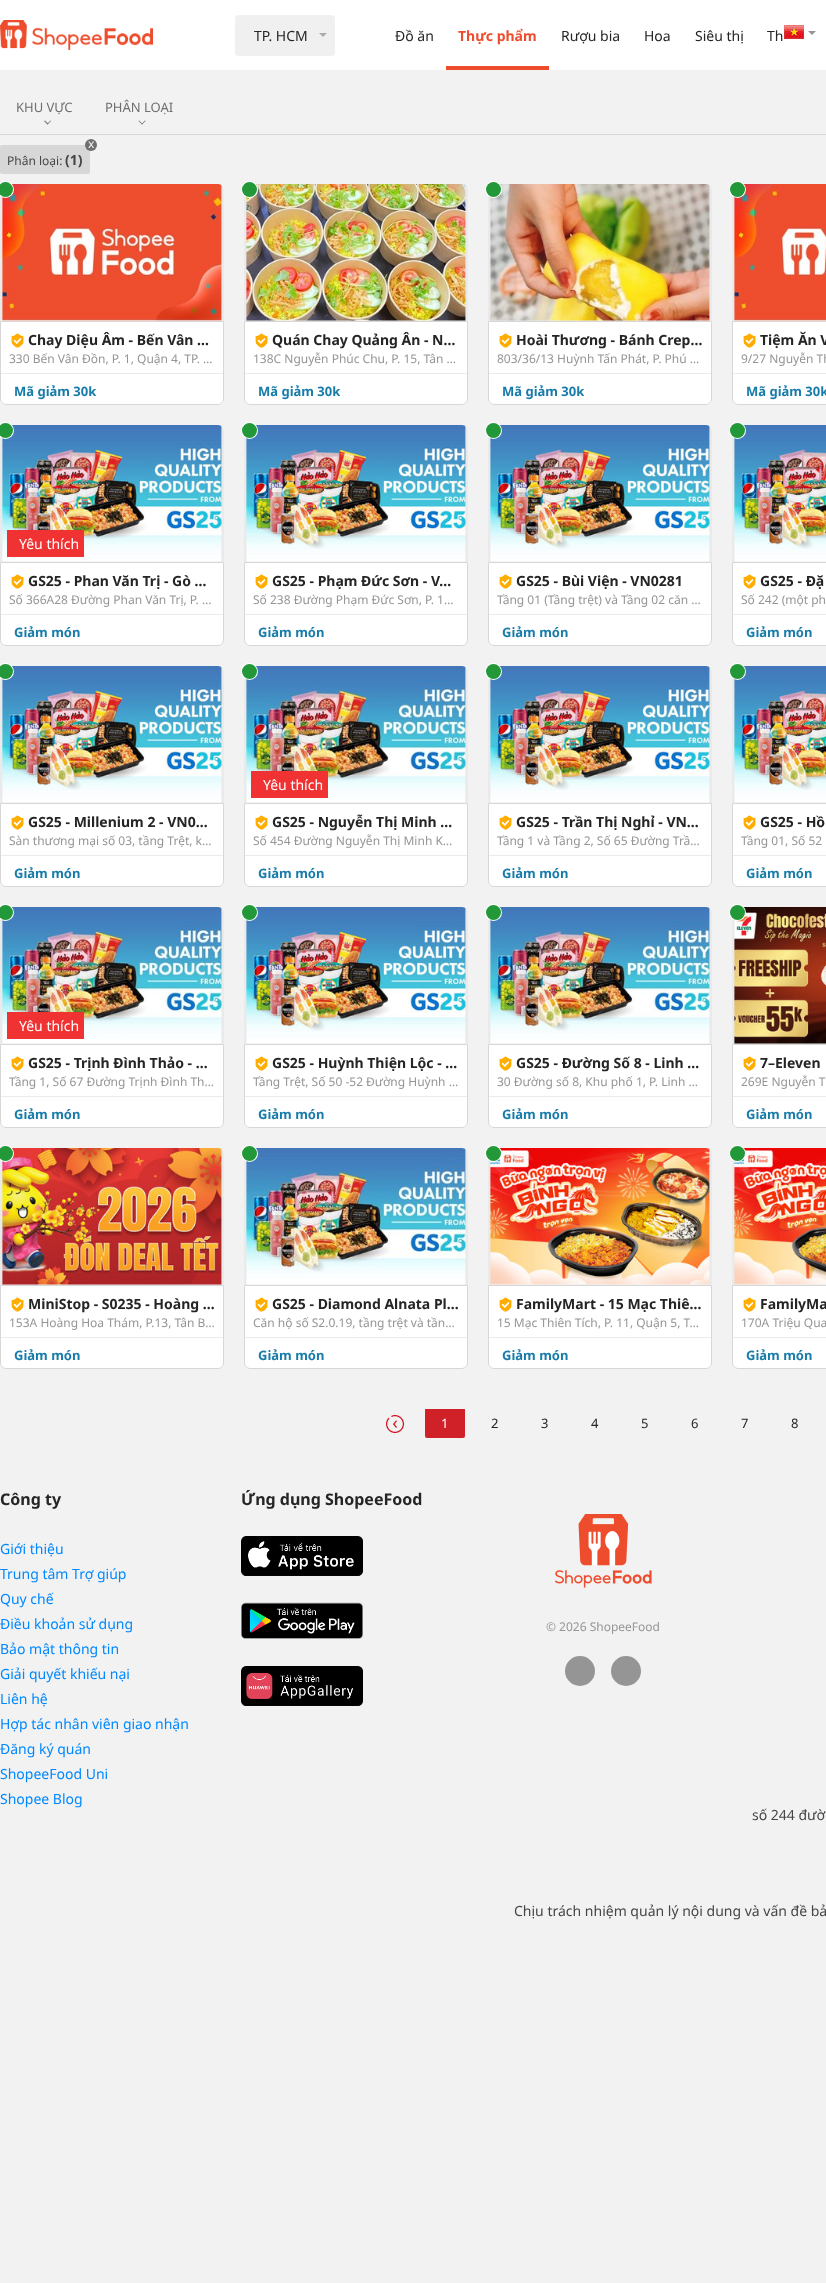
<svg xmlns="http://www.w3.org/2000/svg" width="826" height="2283">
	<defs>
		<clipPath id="clip1"><rect x="0" y="1409" width="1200" height="30" /></clipPath>
	</defs>
	<rect width="100%" height="100%" fill="#F2F2F2" />
	<rect x="0" y="0" width="826" height="70" fill="#FFFFFF" />
	<image x="0" y="20" width="153" height="30" href="assets/img1.png" />
	<rect x="235" y="15" width="100" height="41" rx="4" fill="#F0F0F0" />
	<text x="254" y="41" font-family="Noto Sans" font-size="14" fill="#252525">TP. HCM</text>
	<path d="M319 33H327L323 37Z" fill="#ACACAC" />
	<text x="395" y="41" font-family="Noto Sans" font-size="14" fill="#252525">Đồ ăn</text>
	<text x="458" y="41" font-family="Noto Sans" font-size="14" font-weight="700" fill="#EE4D2D">Thực phẩm</text>
	<rect x="446" y="66" width="103" height="4" fill="#EE4D2D" />
	<g font-family="Noto Sans" font-size="14" fill="#252525">
		<text x="561" y="41">Rượu bia</text>
		<text x="644" y="41">Hoa</text>
		<text x="695" y="41">Siêu thị</text>
		<text x="767" y="41">Th</text>
	</g>
	<image x="784" y="25" width="20" height="14" href="assets/img2.png" />
	<path d="M808 31H816L812 35Z" fill="#959595" />
	<rect x="0" y="134" width="826" height="1" fill="#D7D7D7" />
	<text x="16" y="112" font-family="Noto Sans" font-size="13" fill="#6D6F71">KHU VỰC</text>
	<path d="M50.5 120.5L51 121L47.5 124.5L47 124Z" fill="#6D6F71" />
	<path d="M45 120.5L48.5 124L47.5 124.5L44 121Z" fill="#6D6F71" />
	<text x="105" y="112" font-family="Noto Sans" font-size="13" fill="#6D6F71">PHÂN LOẠI</text>
	<path d="M145 120.5L145.5 121L142 124.5L141.5 124Z" fill="#6D6F71" />
	<path d="M139 120.5L142.5 124L142 124.5L138.5 121Z" fill="#6D6F71" />
	<rect x="0" y="145" width="90" height="29" rx="2" fill="#D7D7D7" />
	<circle cx="91" cy="145" r="6" fill="#6D6F71" />
	<text x="88" y="148" font-family="Noto Sans" font-size="12" fill="#F2F2F2">x</text>
	<text x="7" y="165" font-family="Noto Sans" font-size="12" fill="#464646">Phân loại:</text>
	<text x="65" y="165" font-family="Noto Sans" font-size="14" font-weight="700" fill="#464646">(1)</text>
	<rect x="0" y="184" width="224" height="221" rx="6" fill="#FFFFFF" />
	<path d="M6 184H218C221.5 184 224 186.5 224 190V321H0V190C0 186.5 2.5 184 6 184Z" fill="#EAEAEA" />
	<image x="2" y="184" width="220" height="137" href="assets/img3.png" />
	<path d="M.5 321.5H223.5V399C223.5 402 221 404.5 218 404.5H6C3 404.5 .5 402 .5 399Z" fill="none" stroke="#D7D7D7" />
	<circle cx="5.5" cy="189.5" r="8.5" fill="#FFFFFF" />
	<circle cx="5.5" cy="189.5" r="7.5" fill="#239839" />
	<rect x="1" y="373" width="222" height="1" fill="#EBEBEB" />
	<image x="11" y="333" width="13" height="15" href="assets/img4.png" />
	<text x="28" y="345" font-family="Noto Sans" font-size="14" font-weight="700" fill="#252525">Chay Diệu Âm - Bến Vân …</text>
	<text x="9" y="363" font-family="Noto Sans" font-size="12" fill="#959595">330 Bến Vân Đồn, P. 1, Quận 4, TP. …</text>
	<text x="14" y="396" font-family="Noto Sans" font-size="13" font-weight="700" fill="#187CAA">Mã giảm 30k</text>
	<rect x="244" y="184" width="224" height="221" rx="6" fill="#FFFFFF" />
	<path d="M250 184H462C465.5 184 468 186.5 468 190V321H244V190C244 186.5 246.5 184 250 184Z" fill="#EAEAEA" />
	<image x="246" y="184" width="220" height="137" href="assets/img5.png" />
	<path d="M244.5 321.5H467.5V399C467.5 402 465 404.5 462 404.5H250C247 404.5 244.5 402 244.5 399Z" fill="none" stroke="#D7D7D7" />
	<circle cx="249.5" cy="189.5" r="8.5" fill="#FFFFFF" />
	<circle cx="249.5" cy="189.5" r="7.5" fill="#239839" />
	<rect x="245" y="373" width="222" height="1" fill="#EBEBEB" />
	<image x="255" y="333" width="13" height="15" href="assets/img6.png" />
	<text x="272" y="345" font-family="Noto Sans" font-size="14" font-weight="700" fill="#252525">Quán Chay Quảng Ân - N…</text>
	<text x="253" y="363" font-family="Noto Sans" font-size="12" fill="#959595">138C Nguyễn Phúc Chu, P. 15, Tân …</text>
	<text x="258" y="396" font-family="Noto Sans" font-size="13" font-weight="700" fill="#187CAA">Mã giảm 30k</text>
	<rect x="488" y="184" width="224" height="221" rx="6" fill="#FFFFFF" />
	<path d="M494 184H706C709.5 184 712 186.5 712 190V321H488V190C488 186.5 490.5 184 494 184Z" fill="#EAEAEA" />
	<image x="490" y="184" width="220" height="137" href="assets/img7.png" />
	<path d="M488.5 321.5H711.5V399C711.5 402 709 404.5 706 404.5H494C491 404.5 488.5 402 488.5 399Z" fill="none" stroke="#D7D7D7" />
	<circle cx="493.5" cy="189.5" r="8.5" fill="#FFFFFF" />
	<circle cx="493.5" cy="189.5" r="7.5" fill="#239839" />
	<rect x="489" y="373" width="222" height="1" fill="#EBEBEB" />
	<image x="499" y="333" width="13" height="15" href="assets/img4.png" />
	<text x="516" y="345" font-family="Noto Sans" font-size="14" font-weight="700" fill="#252525">Hoài Thương - Bánh Crep…</text>
	<text x="497" y="363" font-family="Noto Sans" font-size="12" fill="#959595">803/36/13 Huỳnh Tấn Phát, P. Phú …</text>
	<text x="502" y="396" font-family="Noto Sans" font-size="13" font-weight="700" fill="#187CAA">Mã giảm 30k</text>
	<rect x="732" y="184" width="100" height="221" rx="6" fill="#FFFFFF" />
	<rect x="732" y="196" width="94" height="125" fill="#EAEAEA" />
	<image x="734" y="184" width="92" height="137" href="assets/img8.png" />
	<path d="M732.5 321.5H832.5V399C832.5 402 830 404.5 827 404.5H738C735 404.5 732.5 402 732.5 399Z" fill="none" stroke="#D7D7D7" />
	<circle cx="737.5" cy="189.5" r="8.5" fill="#FFFFFF" />
	<circle cx="737.5" cy="189.5" r="7.5" fill="#239839" />
	<rect x="733" y="373" width="93" height="1" fill="#EBEBEB" />
	<image x="743" y="333" width="13" height="15" href="assets/img6.png" />
	<text x="760" y="345" font-family="Noto Sans" font-size="14" font-weight="700" fill="#252525">Tiệm Ăn V</text>
	<text x="741" y="363" font-family="Noto Sans" font-size="12" fill="#959595">9/27 Nguyễn Th</text>
	<text x="746" y="396" font-family="Noto Sans" font-size="13" font-weight="700" fill="#187CAA">Mã giảm 30k</text>
	<rect x="0" y="425" width="224" height="221" rx="6" fill="#FFFFFF" />
	<path d="M6 425H218C221.5 425 224 427.5 224 431V562H0V431C0 427.5 2.5 425 6 425Z" fill="#EAEAEA" />
	<image x="2" y="425" width="220" height="137" href="assets/img9.png" />
	<rect x="7" y="530" width="77" height="27" fill="#F13233" />
	<text x="19" y="549" font-family="Noto Sans" font-size="14" fill="#FFFFFF">Yêu thích</text>
	<path d="M.5 562.5H223.5V640C223.5 643 221 645.5 218 645.5H6C3 645.5 .5 643 .5 640Z" fill="none" stroke="#D7D7D7" />
	<circle cx="5.5" cy="430.5" r="8.5" fill="#FFFFFF" />
	<circle cx="5.5" cy="430.5" r="7.5" fill="#239839" />
	<rect x="1" y="614" width="222" height="1" fill="#EBEBEB" />
	<image x="11" y="574" width="13" height="15" href="assets/img10.png" />
	<text x="28" y="586" font-family="Noto Sans" font-size="14" font-weight="700" fill="#252525">GS25 - Phan Văn Trị - Gò …</text>
	<text x="9" y="604" font-family="Noto Sans" font-size="12" fill="#959595">Số 366A28 Đường Phan Văn Trị, P. …</text>
	<text x="14" y="637" font-family="Noto Sans" font-size="13" font-weight="700" fill="#187CAA">Giảm món</text>
	<rect x="244" y="425" width="224" height="221" rx="6" fill="#FFFFFF" />
	<path d="M250 425H462C465.5 425 468 427.5 468 431V562H244V431C244 427.5 246.5 425 250 425Z" fill="#EAEAEA" />
	<image x="246" y="425" width="220" height="137" href="assets/img9.png" />
	<path d="M244.5 562.5H467.5V640C467.5 643 465 645.5 462 645.5H250C247 645.5 244.5 643 244.5 640Z" fill="none" stroke="#D7D7D7" />
	<circle cx="249.5" cy="430.5" r="8.5" fill="#FFFFFF" />
	<circle cx="249.5" cy="430.5" r="7.5" fill="#239839" />
	<rect x="245" y="614" width="222" height="1" fill="#EBEBEB" />
	<image x="255" y="574" width="13" height="15" href="assets/img11.png" />
	<text x="272" y="586" font-family="Noto Sans" font-size="14" font-weight="700" fill="#252525">GS25 - Phạm Đức Sơn - V…</text>
	<text x="253" y="604" font-family="Noto Sans" font-size="12" fill="#959595">Số 238 Đường Phạm Đức Sơn, P. 1…</text>
	<text x="258" y="637" font-family="Noto Sans" font-size="13" font-weight="700" fill="#187CAA">Giảm món</text>
	<rect x="488" y="425" width="224" height="221" rx="6" fill="#FFFFFF" />
	<path d="M494 425H706C709.5 425 712 427.5 712 431V562H488V431C488 427.5 490.5 425 494 425Z" fill="#EAEAEA" />
	<image x="490" y="425" width="220" height="137" href="assets/img9.png" />
	<path d="M488.5 562.5H711.5V640C711.5 643 709 645.5 706 645.5H494C491 645.5 488.5 643 488.5 640Z" fill="none" stroke="#D7D7D7" />
	<circle cx="493.5" cy="430.5" r="8.5" fill="#FFFFFF" />
	<circle cx="493.5" cy="430.5" r="7.5" fill="#239839" />
	<rect x="489" y="614" width="222" height="1" fill="#EBEBEB" />
	<image x="499" y="574" width="13" height="15" href="assets/img10.png" />
	<text x="516" y="586" font-family="Noto Sans" font-size="14" font-weight="700" fill="#252525">GS25 - Bùi Viện - VN0281</text>
	<text x="497" y="604" font-family="Noto Sans" font-size="12" fill="#959595">Tầng 01 (Tầng trệt) và Tầng 02 căn …</text>
	<text x="502" y="637" font-family="Noto Sans" font-size="13" font-weight="700" fill="#187CAA">Giảm món</text>
	<rect x="732" y="425" width="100" height="221" rx="6" fill="#FFFFFF" />
	<rect x="732" y="437" width="94" height="125" fill="#EAEAEA" />
	<image x="734" y="425" width="92" height="137" href="assets/img12.png" />
	<path d="M732.5 562.5H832.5V640C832.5 643 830 645.5 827 645.5H738C735 645.5 732.5 643 732.5 640Z" fill="none" stroke="#D7D7D7" />
	<circle cx="737.5" cy="430.5" r="8.5" fill="#FFFFFF" />
	<circle cx="737.5" cy="430.5" r="7.5" fill="#239839" />
	<rect x="733" y="614" width="93" height="1" fill="#EBEBEB" />
	<image x="743" y="574" width="13" height="15" href="assets/img11.png" />
	<text x="760" y="586" font-family="Noto Sans" font-size="14" font-weight="700" fill="#252525">GS25 - Đặ</text>
	<text x="741" y="604" font-family="Noto Sans" font-size="12" fill="#959595">Số 242 (một ph</text>
	<text x="746" y="637" font-family="Noto Sans" font-size="13" font-weight="700" fill="#187CAA">Giảm món</text>
	<rect x="0" y="666" width="224" height="221" rx="6" fill="#FFFFFF" />
	<path d="M6 666H218C221.5 666 224 668.5 224 672V803H0V672C0 668.5 2.5 666 6 666Z" fill="#EAEAEA" />
	<image x="2" y="666" width="220" height="137" href="assets/img9.png" />
	<path d="M.5 803.5H223.5V881C223.5 884 221 886.5 218 886.5H6C3 886.5 .5 884 .5 881Z" fill="none" stroke="#D7D7D7" />
	<circle cx="5.5" cy="671.5" r="8.5" fill="#FFFFFF" />
	<circle cx="5.5" cy="671.5" r="7.5" fill="#239839" />
	<rect x="1" y="855" width="222" height="1" fill="#EBEBEB" />
	<image x="11" y="815" width="13" height="15" href="assets/img4.png" />
	<text x="28" y="827" font-family="Noto Sans" font-size="14" font-weight="700" fill="#252525">GS25 - Millenium 2 - VN0…</text>
	<text x="9" y="845" font-family="Noto Sans" font-size="12" fill="#959595">Sàn thương mại số 03, tầng Trệt, k…</text>
	<text x="14" y="878" font-family="Noto Sans" font-size="13" font-weight="700" fill="#187CAA">Giảm món</text>
	<rect x="244" y="666" width="224" height="221" rx="6" fill="#FFFFFF" />
	<path d="M250 666H462C465.5 666 468 668.5 468 672V803H244V672C244 668.5 246.5 666 250 666Z" fill="#EAEAEA" />
	<image x="246" y="666" width="220" height="137" href="assets/img13.png" />
	<rect x="251" y="771" width="77" height="27" fill="#F13233" />
	<text x="263" y="790" font-family="Noto Sans" font-size="14" fill="#FFFFFF">Yêu thích</text>
	<path d="M244.5 803.5H467.5V881C467.5 884 465 886.5 462 886.5H250C247 886.5 244.5 884 244.5 881Z" fill="none" stroke="#D7D7D7" />
	<circle cx="249.5" cy="671.5" r="8.5" fill="#FFFFFF" />
	<circle cx="249.5" cy="671.5" r="7.5" fill="#239839" />
	<rect x="245" y="855" width="222" height="1" fill="#EBEBEB" />
	<image x="255" y="815" width="13" height="15" href="assets/img6.png" />
	<text x="272" y="827" font-family="Noto Sans" font-size="14" font-weight="700" fill="#252525">GS25 - Nguyễn Thị Minh …</text>
	<text x="253" y="845" font-family="Noto Sans" font-size="12" fill="#959595">Số 454 Đường Nguyễn Thị Minh K…</text>
	<text x="258" y="878" font-family="Noto Sans" font-size="13" font-weight="700" fill="#187CAA">Giảm món</text>
	<rect x="488" y="666" width="224" height="221" rx="6" fill="#FFFFFF" />
	<path d="M494 666H706C709.5 666 712 668.5 712 672V803H488V672C488 668.5 490.5 666 494 666Z" fill="#EAEAEA" />
	<image x="490" y="666" width="220" height="137" href="assets/img9.png" />
	<path d="M488.5 803.5H711.5V881C711.5 884 709 886.5 706 886.5H494C491 886.5 488.5 884 488.5 881Z" fill="none" stroke="#D7D7D7" />
	<circle cx="493.5" cy="671.5" r="8.5" fill="#FFFFFF" />
	<circle cx="493.5" cy="671.5" r="7.5" fill="#239839" />
	<rect x="489" y="855" width="222" height="1" fill="#EBEBEB" />
	<image x="499" y="815" width="13" height="15" href="assets/img4.png" />
	<text x="516" y="827" font-family="Noto Sans" font-size="14" font-weight="700" fill="#252525">GS25 - Trần Thị Nghỉ - VN…</text>
	<text x="497" y="845" font-family="Noto Sans" font-size="12" fill="#959595">Tầng 1 và Tầng 2, Số 65 Đường Trầ…</text>
	<text x="502" y="878" font-family="Noto Sans" font-size="13" font-weight="700" fill="#187CAA">Giảm món</text>
	<rect x="732" y="666" width="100" height="221" rx="6" fill="#FFFFFF" />
	<rect x="732" y="678" width="94" height="125" fill="#EAEAEA" />
	<image x="734" y="666" width="92" height="137" href="assets/img12.png" />
	<path d="M732.5 803.5H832.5V881C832.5 884 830 886.5 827 886.5H738C735 886.5 732.5 884 732.5 881Z" fill="none" stroke="#D7D7D7" />
	<circle cx="737.5" cy="671.5" r="8.5" fill="#FFFFFF" />
	<circle cx="737.5" cy="671.5" r="7.5" fill="#239839" />
	<rect x="733" y="855" width="93" height="1" fill="#EBEBEB" />
	<image x="743" y="815" width="13" height="15" href="assets/img6.png" />
	<text x="760" y="827" font-family="Noto Sans" font-size="14" font-weight="700" fill="#252525">GS25 - Hồ</text>
	<text x="741" y="845" font-family="Noto Sans" font-size="12" fill="#959595">Tầng 01, Số 52</text>
	<text x="746" y="878" font-family="Noto Sans" font-size="13" font-weight="700" fill="#187CAA">Giảm món</text>
	<rect x="0" y="907" width="224" height="221" rx="6" fill="#FFFFFF" />
	<path d="M6 907H218C221.5 907 224 909.5 224 913V1044H0V913C0 909.5 2.5 907 6 907Z" fill="#EAEAEA" />
	<image x="2" y="907" width="220" height="137" href="assets/img13.png" />
	<rect x="7" y="1012" width="77" height="27" fill="#F13233" />
	<text x="19" y="1031" font-family="Noto Sans" font-size="14" fill="#FFFFFF">Yêu thích</text>
	<path d="M.5 1044.5H223.5V1122C223.5 1125 221 1127.5 218 1127.5H6C3 1127.5 .5 1125 .5 1122Z" fill="none" stroke="#D7D7D7" />
	<circle cx="5.5" cy="912.5" r="8.5" fill="#FFFFFF" />
	<circle cx="5.5" cy="912.5" r="7.5" fill="#239839" />
	<rect x="1" y="1096" width="222" height="1" fill="#EBEBEB" />
	<image x="11" y="1056" width="13" height="15" href="assets/img4.png" />
	<text x="28" y="1068" font-family="Noto Sans" font-size="14" font-weight="700" fill="#252525">GS25 - Trịnh Đình Thảo - …</text>
	<text x="9" y="1086" font-family="Noto Sans" font-size="12" fill="#959595">Tầng 1, Số 67 Đường Trịnh Đình Th…</text>
	<text x="14" y="1119" font-family="Noto Sans" font-size="13" font-weight="700" fill="#187CAA">Giảm món</text>
	<rect x="244" y="907" width="224" height="221" rx="6" fill="#FFFFFF" />
	<path d="M250 907H462C465.5 907 468 909.5 468 913V1044H244V913C244 909.5 246.5 907 250 907Z" fill="#EAEAEA" />
	<image x="246" y="907" width="220" height="137" href="assets/img9.png" />
	<path d="M244.5 1044.5H467.5V1122C467.5 1125 465 1127.5 462 1127.5H250C247 1127.5 244.5 1125 244.5 1122Z" fill="none" stroke="#D7D7D7" />
	<circle cx="249.5" cy="912.5" r="8.5" fill="#FFFFFF" />
	<circle cx="249.5" cy="912.5" r="7.5" fill="#239839" />
	<rect x="245" y="1096" width="222" height="1" fill="#EBEBEB" />
	<image x="255" y="1056" width="13" height="15" href="assets/img6.png" />
	<text x="272" y="1068" font-family="Noto Sans" font-size="14" font-weight="700" fill="#252525">GS25 - Huỳnh Thiện Lộc - …</text>
	<text x="253" y="1086" font-family="Noto Sans" font-size="12" fill="#959595">Tầng Trệt, Số 50 -52 Đường Huỳnh …</text>
	<text x="258" y="1119" font-family="Noto Sans" font-size="13" font-weight="700" fill="#187CAA">Giảm món</text>
	<rect x="488" y="907" width="224" height="221" rx="6" fill="#FFFFFF" />
	<path d="M494 907H706C709.5 907 712 909.5 712 913V1044H488V913C488 909.5 490.5 907 494 907Z" fill="#EAEAEA" />
	<image x="490" y="907" width="220" height="137" href="assets/img13.png" />
	<path d="M488.5 1044.5H711.5V1122C711.5 1125 709 1127.5 706 1127.5H494C491 1127.5 488.5 1125 488.5 1122Z" fill="none" stroke="#D7D7D7" />
	<circle cx="493.5" cy="912.5" r="8.5" fill="#FFFFFF" />
	<circle cx="493.5" cy="912.5" r="7.5" fill="#239839" />
	<rect x="489" y="1096" width="222" height="1" fill="#EBEBEB" />
	<image x="499" y="1056" width="13" height="15" href="assets/img4.png" />
	<text x="516" y="1068" font-family="Noto Sans" font-size="14" font-weight="700" fill="#252525">GS25 - Đường Số 8 - Linh …</text>
	<text x="497" y="1086" font-family="Noto Sans" font-size="12" fill="#959595">30 Đường số 8, Khu phố 1, P. Linh …</text>
	<text x="502" y="1119" font-family="Noto Sans" font-size="13" font-weight="700" fill="#187CAA">Giảm món</text>
	<rect x="732" y="907" width="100" height="221" rx="6" fill="#FFFFFF" />
	<rect x="732" y="919" width="94" height="125" fill="#EAEAEA" />
	<image x="734" y="907" width="92" height="137" href="assets/img14.png" />
	<path d="M732.5 1044.5H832.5V1122C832.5 1125 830 1127.5 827 1127.5H738C735 1127.5 732.5 1125 732.5 1122Z" fill="none" stroke="#D7D7D7" />
	<circle cx="737.5" cy="912.5" r="8.5" fill="#FFFFFF" />
	<circle cx="737.5" cy="912.5" r="7.5" fill="#239839" />
	<rect x="733" y="1096" width="93" height="1" fill="#EBEBEB" />
	<image x="743" y="1056" width="13" height="15" href="assets/img6.png" />
	<text x="760" y="1068" font-family="Noto Sans" font-size="14" font-weight="700" fill="#252525">7–Eleven</text>
	<text x="741" y="1086" font-family="Noto Sans" font-size="12" fill="#959595">269E Nguyễn T</text>
	<text x="746" y="1119" font-family="Noto Sans" font-size="13" font-weight="700" fill="#187CAA">Giảm món</text>
	<rect x="0" y="1148" width="224" height="221" rx="6" fill="#FFFFFF" />
	<path d="M6 1148H218C221.5 1148 224 1150.5 224 1154V1285H0V1154C0 1150.5 2.5 1148 6 1148Z" fill="#EAEAEA" />
	<image x="2" y="1148" width="220" height="137" href="assets/img15.png" />
	<path d="M.5 1285.5H223.5V1363C223.5 1366 221 1368.5 218 1368.5H6C3 1368.5 .5 1366 .5 1363Z" fill="none" stroke="#D7D7D7" />
	<circle cx="5.5" cy="1153.5" r="8.5" fill="#FFFFFF" />
	<circle cx="5.5" cy="1153.5" r="7.5" fill="#239839" />
	<rect x="1" y="1337" width="222" height="1" fill="#EBEBEB" />
	<image x="11" y="1297" width="13" height="15" href="assets/img4.png" />
	<text x="28" y="1309" font-family="Noto Sans" font-size="14" font-weight="700" fill="#252525">MiniStop - S0235 - Hoàng …</text>
	<text x="9" y="1327" font-family="Noto Sans" font-size="12" fill="#959595">153A Hoàng Hoa Thám, P.13, Tân B…</text>
	<text x="14" y="1360" font-family="Noto Sans" font-size="13" font-weight="700" fill="#187CAA">Giảm món</text>
	<rect x="244" y="1148" width="224" height="221" rx="6" fill="#FFFFFF" />
	<path d="M250 1148H462C465.5 1148 468 1150.5 468 1154V1285H244V1154C244 1150.5 246.5 1148 250 1148Z" fill="#EAEAEA" />
	<image x="246" y="1148" width="220" height="137" href="assets/img16.png" />
	<path d="M244.5 1285.5H467.5V1363C467.5 1366 465 1368.5 462 1368.5H250C247 1368.5 244.5 1366 244.5 1363Z" fill="none" stroke="#D7D7D7" />
	<circle cx="249.5" cy="1153.5" r="8.5" fill="#FFFFFF" />
	<circle cx="249.5" cy="1153.5" r="7.5" fill="#239839" />
	<rect x="245" y="1337" width="222" height="1" fill="#EBEBEB" />
	<image x="255" y="1297" width="13" height="15" href="assets/img6.png" />
	<text x="272" y="1309" font-family="Noto Sans" font-size="14" font-weight="700" fill="#252525">GS25 - Diamond Alnata Pl…</text>
	<text x="253" y="1327" font-family="Noto Sans" font-size="12" fill="#959595">Căn hộ số S2.0.19, tầng trệt và tần…</text>
	<text x="258" y="1360" font-family="Noto Sans" font-size="13" font-weight="700" fill="#187CAA">Giảm món</text>
	<rect x="488" y="1148" width="224" height="221" rx="6" fill="#FFFFFF" />
	<path d="M494 1148H706C709.5 1148 712 1150.5 712 1154V1285H488V1154C488 1150.5 490.5 1148 494 1148Z" fill="#EAEAEA" />
	<image x="490" y="1148" width="220" height="137" href="assets/img17.png" />
	<path d="M488.5 1285.5H711.5V1363C711.5 1366 709 1368.5 706 1368.5H494C491 1368.5 488.5 1366 488.5 1363Z" fill="none" stroke="#D7D7D7" />
	<circle cx="493.5" cy="1153.5" r="8.5" fill="#FFFFFF" />
	<circle cx="493.5" cy="1153.5" r="7.5" fill="#239839" />
	<rect x="489" y="1337" width="222" height="1" fill="#EBEBEB" />
	<image x="499" y="1297" width="13" height="15" href="assets/img4.png" />
	<text x="516" y="1309" font-family="Noto Sans" font-size="14" font-weight="700" fill="#252525">FamilyMart - 15 Mạc Thiê…</text>
	<text x="497" y="1327" font-family="Noto Sans" font-size="12" fill="#959595">15 Mạc Thiên Tích, P. 11, Quận 5, T…</text>
	<text x="502" y="1360" font-family="Noto Sans" font-size="13" font-weight="700" fill="#187CAA">Giảm món</text>
	<rect x="732" y="1148" width="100" height="221" rx="6" fill="#FFFFFF" />
	<rect x="732" y="1160" width="94" height="125" fill="#EAEAEA" />
	<image x="734" y="1148" width="92" height="137" href="assets/img18.png" />
	<path d="M732.5 1285.5H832.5V1363C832.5 1366 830 1368.5 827 1368.5H738C735 1368.5 732.5 1366 732.5 1363Z" fill="none" stroke="#D7D7D7" />
	<circle cx="737.5" cy="1153.5" r="8.5" fill="#FFFFFF" />
	<circle cx="737.5" cy="1153.5" r="7.5" fill="#239839" />
	<rect x="733" y="1337" width="93" height="1" fill="#EBEBEB" />
	<image x="743" y="1297" width="13" height="15" href="assets/img6.png" />
	<text x="760" y="1309" font-family="Noto Sans" font-size="14" font-weight="700" fill="#252525">FamilyMa</text>
	<text x="741" y="1327" font-family="Noto Sans" font-size="12" fill="#959595">170A Triệu Qua</text>
	<text x="746" y="1360" font-family="Noto Sans" font-size="13" font-weight="700" fill="#187CAA">Giảm món</text>
	<image x="386" y="1415" width="18" height="18" href="assets/img19.png" />
	<g clip-path="url(#clip1)">
		<rect x="425" y="1408" width="40" height="30" rx="2" fill="#CF2127" />
	</g>
	<text x="441" y="1428" font-family="Noto Sans" font-size="13" fill="#FFFFFF">1</text>
	<g font-family="Noto Sans" font-size="13" fill="#252525">
		<text x="491" y="1428">2</text>
		<text x="541" y="1428">3</text>
		<text x="591" y="1428">4</text>
		<text x="641" y="1428">5</text>
		<text x="691" y="1428">6</text>
		<text x="741" y="1428">7</text>
		<text x="791" y="1428">8</text>
	</g>
	<text x="0" y="1505" font-family="Noto Sans" font-size="16" font-weight="700" fill="#252525">Công ty</text>
	<g font-family="Noto Sans" font-size="14" fill="#0088FF">
		<text x="0" y="1554">Giới thiệu</text>
		<text x="0" y="1579">Trung tâm Trợ giúp</text>
		<text x="0" y="1604">Quy chế</text>
		<text x="0" y="1629">Điều khoản sử dụng</text>
		<text x="0" y="1654">Bảo mật thông tin</text>
		<text x="0" y="1679">Giải quyết khiếu nại</text>
		<text x="0" y="1704">Liên hệ</text>
		<text x="0" y="1729">Hợp tác nhân viên giao nhận</text>
		<text x="0" y="1754">Đăng ký quán</text>
		<text x="0" y="1779">ShopeeFood Uni</text>
		<text x="0" y="1804">Shopee Blog</text>
	</g>
	<text x="241" y="1505" font-family="Noto Sans" font-size="16" font-weight="700" fill="#252525">Ứng dụng ShopeeFood</text>
	<image x="241" y="1536" width="122" height="40" href="assets/img20.png" />
	<image x="241" y="1602" width="122" height="37" href="assets/img21.png" />
	<image x="241" y="1666" width="122" height="40" href="assets/img22.png" />
	<image x="555" y="1514" width="97" height="74" href="assets/img23.png" />
	<text x="546" y="1631" font-family="Noto Sans" font-size="12" fill="#959595">© 2026 ShopeeFood</text>
	<circle cx="580" cy="1671" r="15" fill="#959595" />
	<circle cx="626" cy="1671" r="15" fill="#959595" />
	<g font-family="Noto Sans" font-size="14" fill="#464646">
		<text x="752" y="1820">số 244 đườ</text>
		<text x="514" y="1916">Chịu trách nhiệm quản lý nội dung và vấn đề bả</text>
	</g>
</svg>
